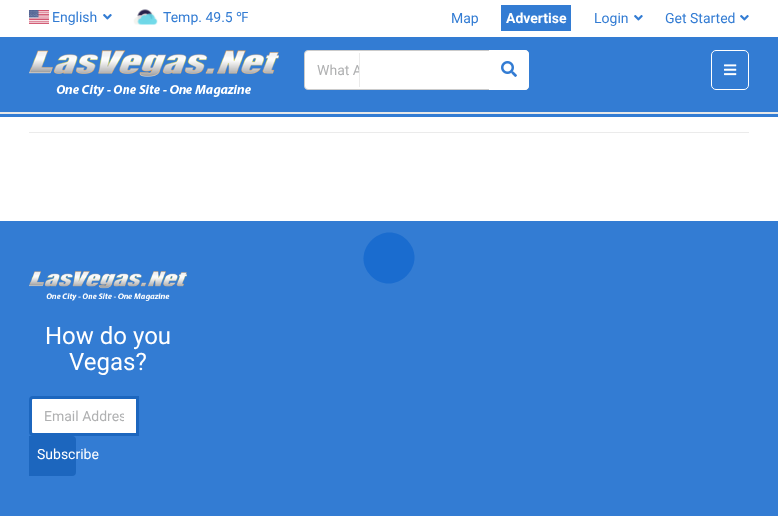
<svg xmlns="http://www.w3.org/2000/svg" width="778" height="516">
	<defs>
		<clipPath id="clip1"><rect x="44" y="408" width="80" height="16" /></clipPath>
	</defs>
	<rect width="100%" height="100%" fill="#FFFFFF" />
	<rect x="0" y="37" width="778" height="75" fill="#337CD3" />
	<image x="29" y="10" width="20" height="14" href="assets/img1.png" />
	<text x="52" y="22" font-family="Roboto" font-size="14" fill="#337CD3">English</text>
	<image x="103" y="14" width="9" height="6" href="assets/img2.png" />
	<image x="133" y="9" width="25" height="16" href="assets/img3.png" />
	<text x="163" y="22" font-family="Roboto" font-size="14" fill="#337CD3">Temp. 49.5</text>
	<text x="236" y="22" font-family="Noto Sans" font-size="14" fill="#337CD3">℉</text>
	<text x="451" y="23" font-family="Roboto" font-size="14" fill="#337CD3">Map</text>
	<rect x="501" y="5" width="70" height="26" fill="#337CD3" />
	<text x="506" y="23" font-family="Roboto" font-size="14" font-weight="700" fill="#FFFFFF">Advertise</text>
	<text x="594" y="23" font-family="Roboto" font-size="14" fill="#337CD3">Login</text>
	<image x="634" y="15" width="9" height="6" href="assets/img2.png" />
	<text x="665" y="23" font-family="Roboto" font-size="14" fill="#337CD3">Get Started</text>
	<image x="740" y="15" width="9" height="6" href="assets/img2.png" />
	<rect x="0" y="114" width="778" height="3" fill="#337CD3" />
	<image x="29" y="50" width="250" height="47" href="assets/img4.png" />
	<rect x="304.5" y="50.5" width="224" height="39" rx="3.5" fill="#FFFFFF" stroke="#CBCBCB" />
	<text x="317" y="75" font-family="Roboto" font-size="14" fill="#B0B1B2">What A</text>
	<rect x="360" y="70" width="2" height="5" fill="#FFFFFF" />
	<rect x="359" y="53" width="1" height="34" fill="#EBEBEB" />
	<path d="M489 50H525C527 50 529 52 529 54V86C529 88 527 90 525 90H489Z" fill="#FFFFFF" />
	<image x="501" y="61" width="16" height="16" href="assets/img5.png" />
	<rect x="711.5" y="50.5" width="37" height="39" rx="4.5" fill="none" stroke="#FFFFFF" />
	<image x="724" y="64" width="13" height="12" href="assets/img6.png" />
	<rect x="0" y="112" width="778" height="2" fill="#E7E7E7" />
	<rect x="29" y="132" width="720" height="1" fill="#EBEBEB" />
	<rect x="0" y="221" width="778" height="295" fill="#337CD3" />
	<image x="29" y="271" width="158" height="30" href="assets/img7.png" />
	<g font-family="Roboto" font-size="24" fill="#FFFFFF">
		<text x="45" y="344">How do you</text>
		<text x="69" y="370">Vegas?</text>
	</g>
	<path d="M33 397.5H137.5V434.5H33C31.5 434.5 30.5 433.5 30.5 432V400C30.5 398.5 31.5 397.5 33 397.5Z" fill="#FFFFFF" stroke="#1C66BE" stroke-width="3" />
	<g clip-path="url(#clip1)">
		<text x="44" y="421" font-family="Roboto" font-size="14" fill="#B0B1B2">Email Addres</text>
	</g>
	<path d="M30.5 437.5H72C73.5 437.5 74.5 438.5 74.5 440V472C74.5 473.5 73.5 474.5 72 474.5H30.5Z" fill="#1C66BE" stroke="#1C66BE" stroke-width="3" />
	<text x="37" y="459" font-family="Roboto" font-size="14" fill="#FFFFFF">Subscribe</text>
	<path d="M407 240C430 264 395 299 371 276C348 252 383 217 407 240Z" fill="#1A6CCF" />
</svg>
